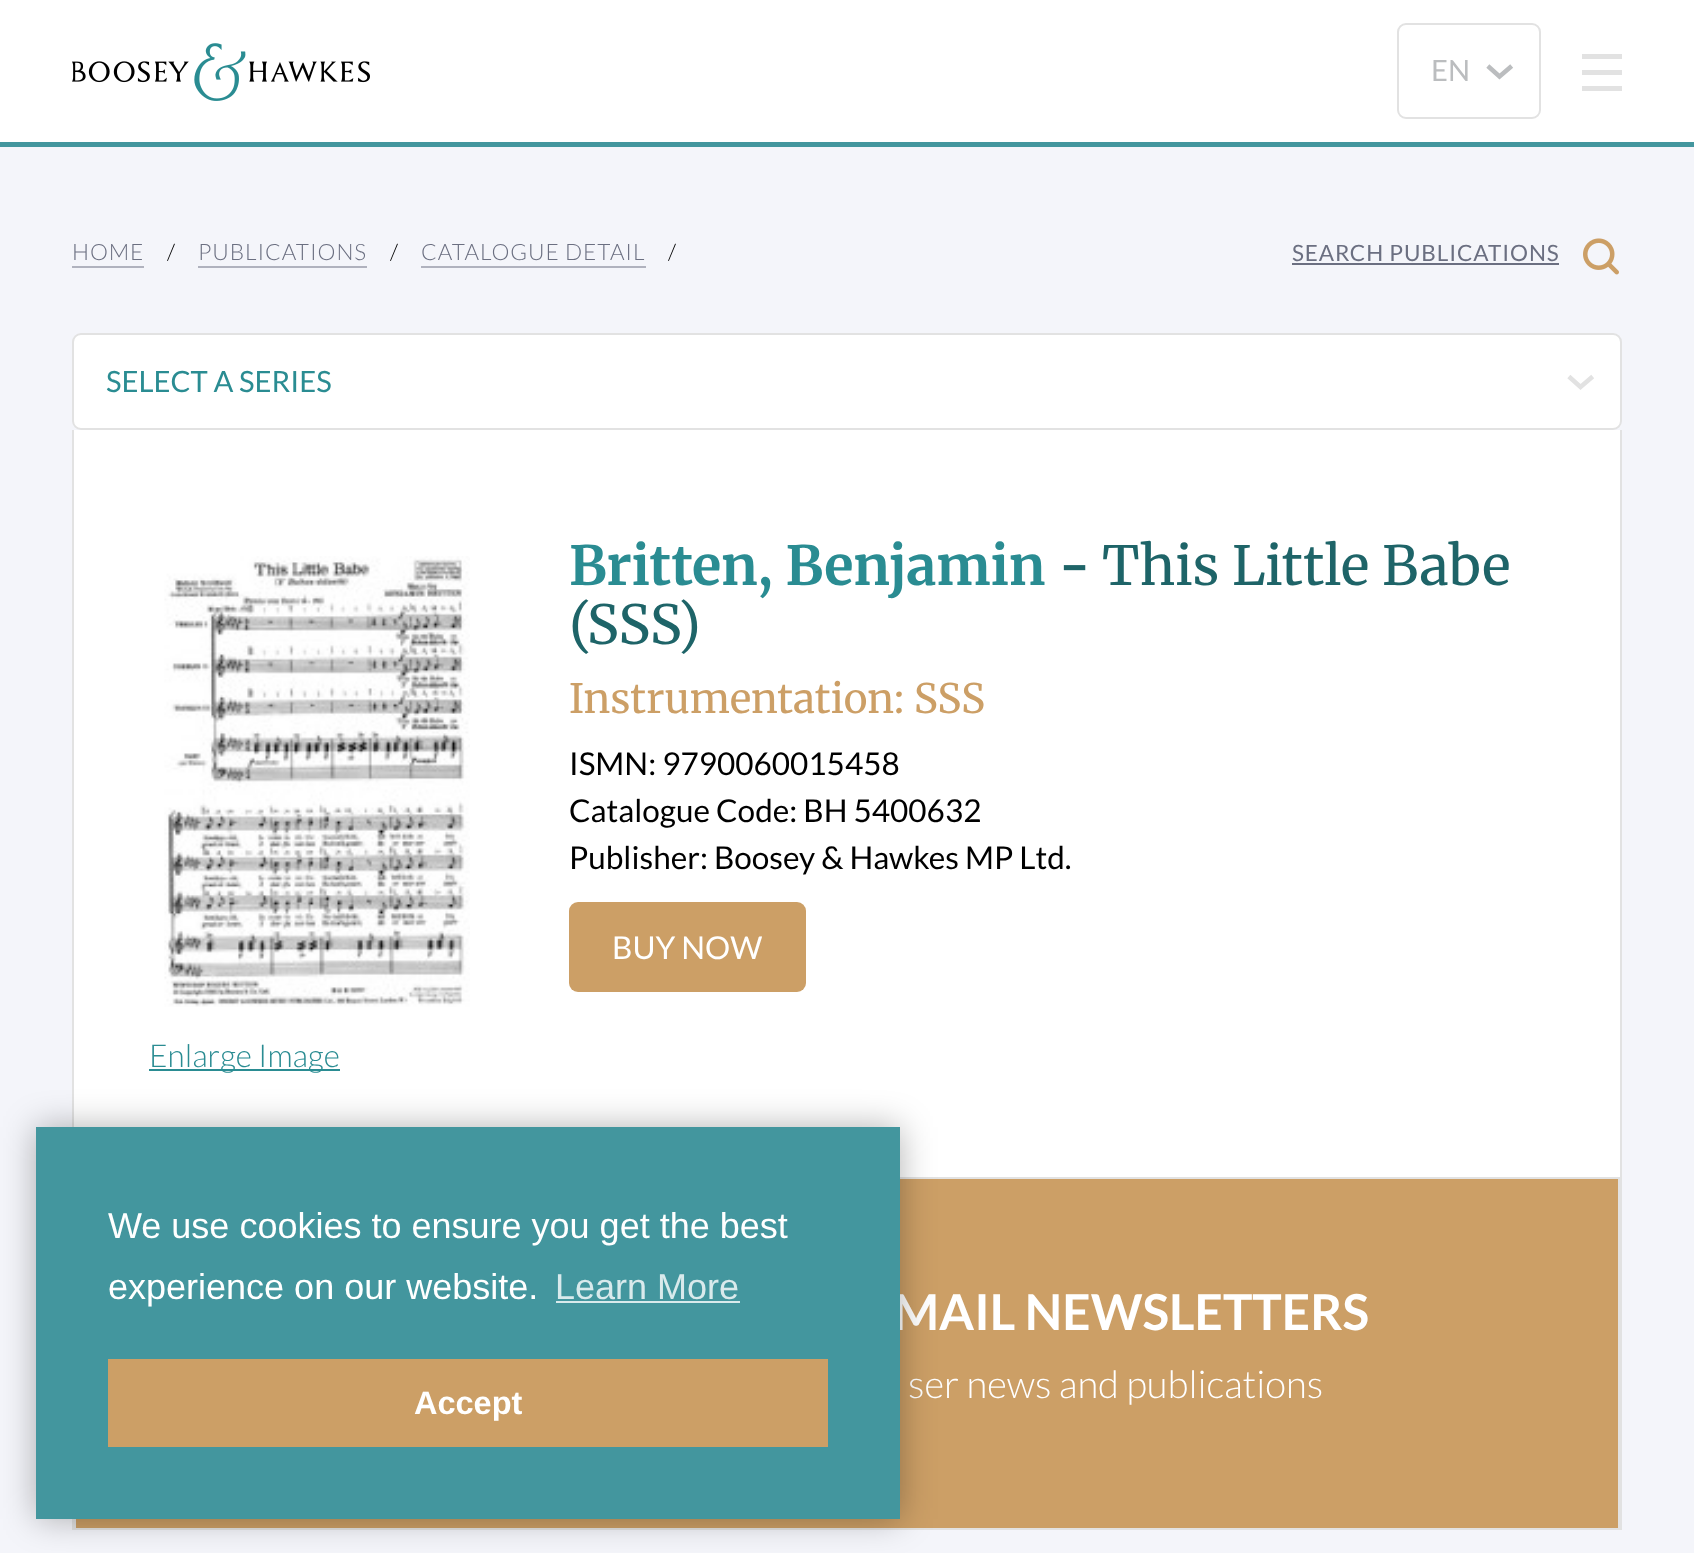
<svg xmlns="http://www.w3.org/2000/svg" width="1694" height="1553">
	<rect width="100%" height="100%" fill="#F4F5FA" />
	<rect x="0" y="0" width="1694" height="142" fill="#FFFFFF" />
	<image x="72" y="43" width="298" height="58" href="assets/img1.png" />
	<rect x="1398" y="24" width="142" height="94" rx="8" fill="none" stroke="#E2E2E2" stroke-width="2" />
	<text x="1431" y="81" font-family="Lato" font-size="29.25" fill="#BBBDBF">EN</text>
	<path d="M1510 67.5L1499.5 76.5L1489.5 67.5" fill="none" stroke="#BBBDBF" stroke-width="4.5" stroke-linecap="square" />
	<rect x="1582" y="70" width="40" height="5" fill="#E2E2E2" />
	<rect x="1582" y="54" width="40" height="5" fill="#E2E2E2" />
	<rect x="1582" y="86" width="40" height="5" fill="#E2E2E2" />
	<rect x="0" y="142" width="1694" height="5" fill="#43969E" />
	<text x="72" y="260" font-family="Lato" font-size="22.5" font-weight="300" letter-spacing="0.9" fill="#6B6F81">HOME</text>
	<rect x="72" y="266" width="72" height="2" fill="#B0B2BE" />
	<text x="167" y="260" font-family="Lato" font-size="22.5" font-weight="300" letter-spacing="0.9" fill="#000000">/</text>
	<text x="198" y="260" font-family="Lato" font-size="22.5" font-weight="300" letter-spacing="0.9" fill="#6B6F81">PUBLICATIONS</text>
	<rect x="198" y="266" width="169" height="2" fill="#B0B2BE" />
	<text x="390" y="260" font-family="Lato" font-size="22.5" font-weight="300" letter-spacing="0.9" fill="#000000">/</text>
	<text x="421" y="260" font-family="Lato" font-size="22.5" font-weight="300" letter-spacing="0.9" fill="#6B6F81">CATALOGUE DETAIL</text>
	<rect x="421" y="266" width="225" height="2" fill="#B0B2BE" />
	<text x="668" y="260" font-family="Lato" font-size="22.5" font-weight="300" letter-spacing="0.9" fill="#000000">/</text>
	<text x="1292" y="261" font-family="Lato" font-size="22.5" letter-spacing="0.9" fill="#6B6F81">SEARCH PUBLICATIONS</text>
	<rect x="1292" y="263" width="267" height="2" fill="#6B6F81" />
	<image x="1583" y="238" width="36" height="37" href="assets/img2.png" />
	<rect x="73" y="334" width="1548" height="95" rx="8" fill="#FFFFFF" stroke="#E2E2E2" stroke-width="2" />
	<text x="106" y="392" font-family="Lato" font-size="29.25" fill="#2A8C92">SELECT A SERIES</text>
	<path d="M1591 378L1580.5 387L1570.5 378" fill="none" stroke="#E2E2E2" stroke-width="4.5" stroke-linecap="square" />
	<rect x="74" y="430" width="1546" height="747" fill="#FFFFFF" />
	<rect x="1620" y="430" width="2" height="1100" fill="#E2E2E2" />
	<rect x="72" y="430" width="2" height="1100" fill="#E2E2E2" />
	<text x="569" y="585" font-family="Merriweather" font-size="54" font-weight="700" fill="#2A8C92">Britten, Benjamin</text>
	<text x="1059" y="585" font-family="Merriweather" font-size="54" font-weight="700" fill="#1E6468">-</text>
	<g font-family="Merriweather" font-size="54" fill="#1E6468">
		<text x="1102" y="585">This Little Babe</text>
		<text x="569" y="644">(SSS)</text>
	</g>
	<text x="569" y="713" font-family="Merriweather" font-size="40.5" fill="#CC9F66">Instrumentation: SSS</text>
	<g font-family="Lato" font-size="31.5" fill="#000000">
		<text x="569" y="775">ISMN: 9790060015458</text>
		<text x="569" y="822">Catalogue Code: BH 5400632</text>
		<text x="569" y="869">Publisher: Boosey &amp; Hawkes MP Ltd.</text>
	</g>
	<rect x="569" y="902" width="237" height="90" rx="9" fill="#CC9F66" />
	<text x="612" y="959" font-family="Lato" font-size="31.5" fill="#FFFFFF">BUY NOW</text>
	<image x="164" y="556" width="306" height="451" href="assets/img3.png" />
	<rect x="149" y="1069" width="191" height="2" fill="#2A8C92" />
	<text x="149" y="1067" font-family="Lato" font-size="31.5" font-weight="300" fill="#2A8C92">Enlarge Image</text>
	<rect x="75" y="1178" width="1544" height="351" fill="#CC9F66" stroke="#E2E2E2" stroke-width="2" />
	<text x="893" y="1330" font-family="Lato" font-size="49.5" font-weight="700" fill="#FFFFFF">MAIL NEWSLETTERS</text>
	<text x="908" y="1398" font-family="Lato" font-size="38.25" font-weight="300" fill="#FFFFFF">ser news and publications</text>
	<rect x="36" y="1127" width="864" height="392" fill="#000000" fill-opacity="0.3" filter="blur(17px)" />
	<rect x="36" y="1127" width="864" height="392" fill="#43969E" />
	<g font-family="Liberation Sans" font-size="36" fill="#FFFFFF">
		<text x="108" y="1238">We use cookies to ensure you get the best</text>
		<text x="108" y="1299">experience on our website.</text>
	</g>
	<text x="555" y="1299" font-family="Liberation Sans" font-size="36" fill="#D9EAEC">Learn More</text>
	<rect x="556" y="1301" width="184" height="2" fill="#D9EAEC" />
	<rect x="108" y="1359" width="720" height="88" fill="#CC9F66" />
	<text x="414" y="1414" font-family="Liberation Sans" font-size="32.5" font-weight="700" fill="#FFFFFF">Accept</text>
</svg>
